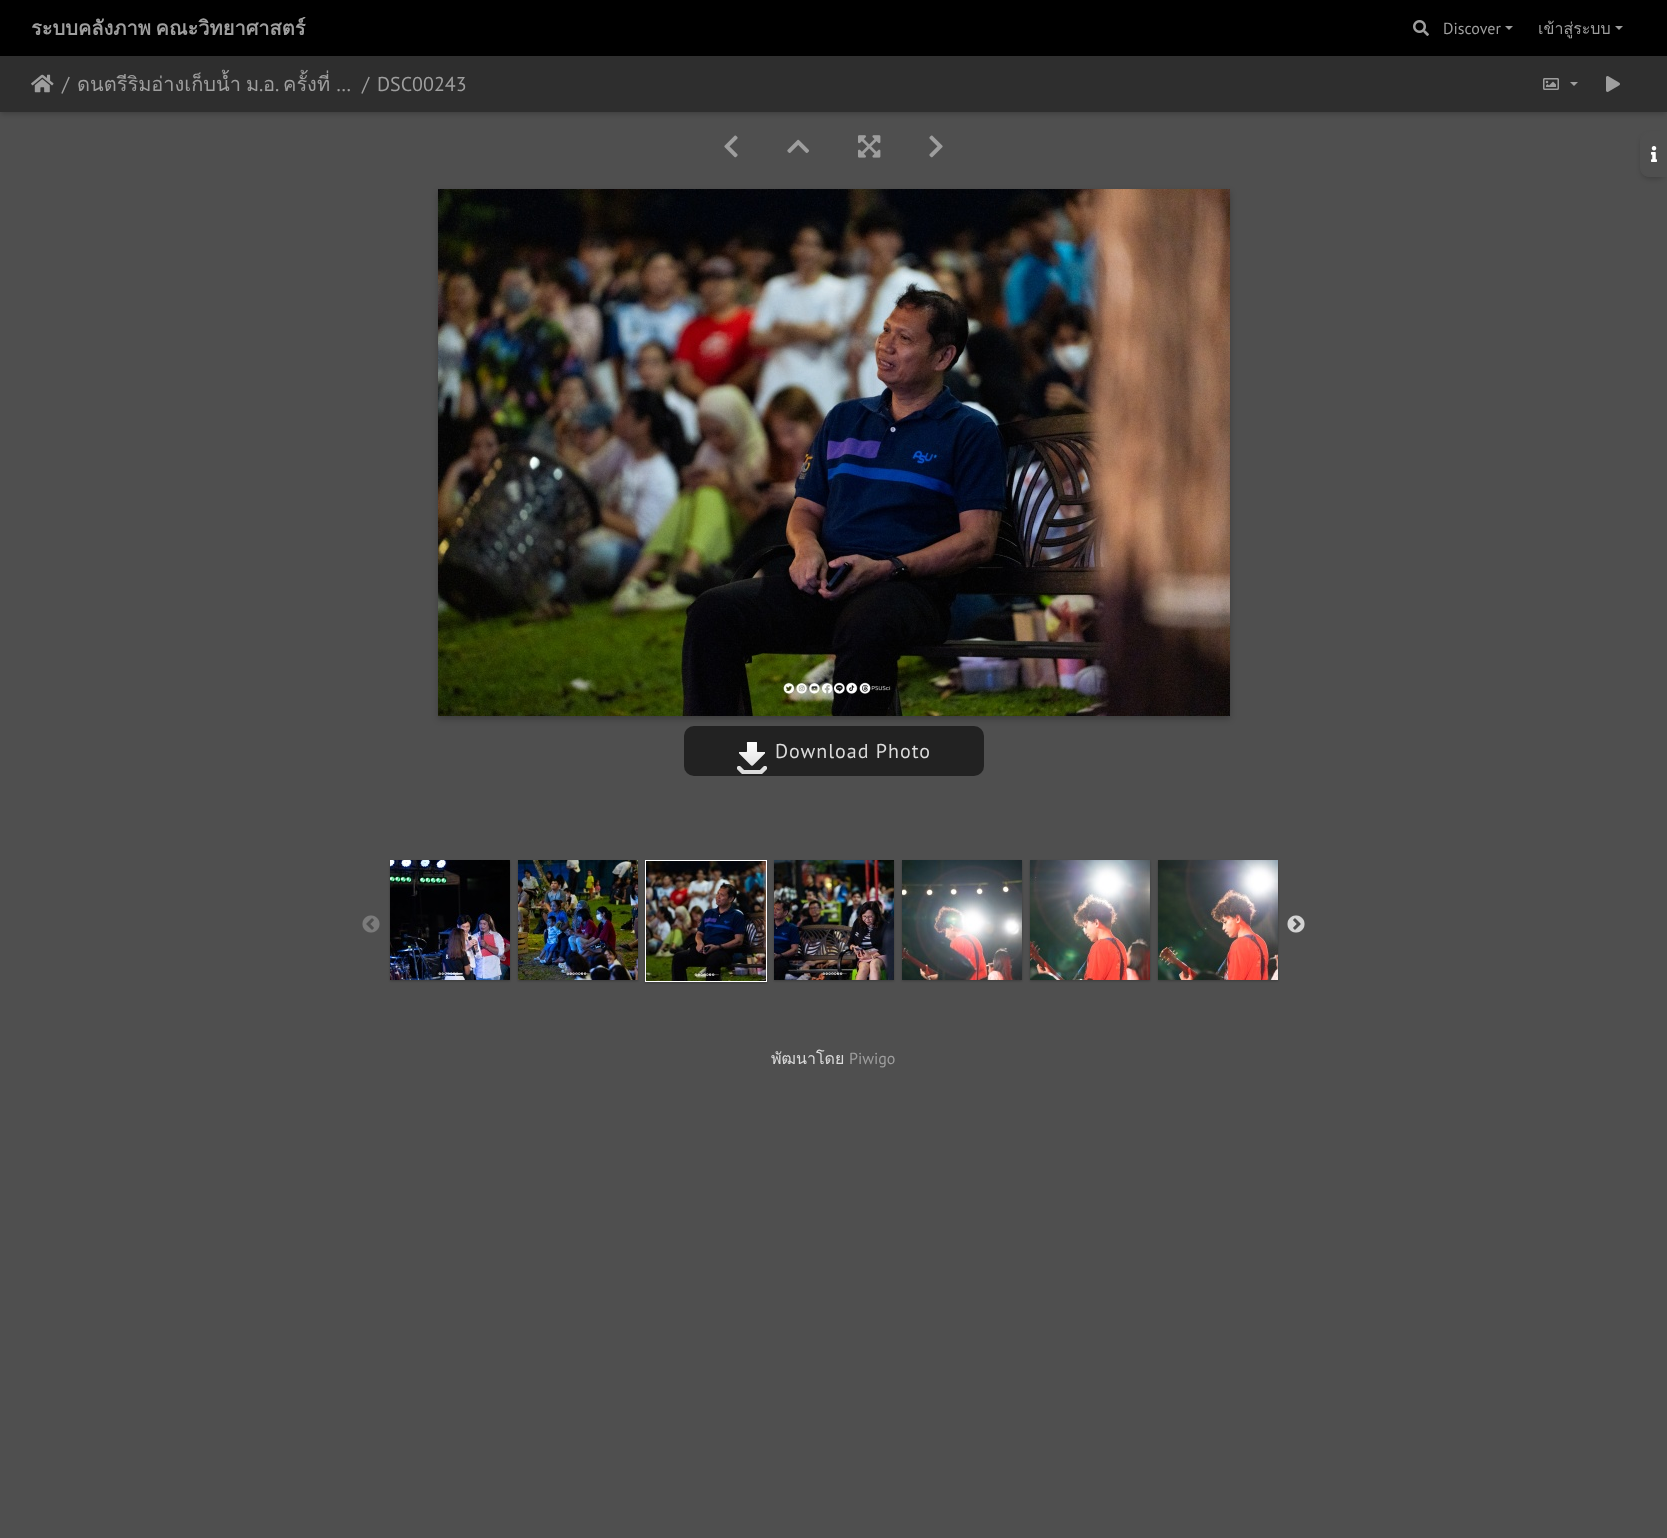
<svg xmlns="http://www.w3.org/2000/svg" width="1667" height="1538">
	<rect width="100%" height="100%" fill="#4F4F4F" />
	<rect x="1" y="60" width="1665" height="54" fill="#000000" fill-opacity="0.2" filter="blur(2.5px)" />
	<rect x="0" y="0" width="1667" height="56" fill="#000000" />
	<text x="31" y="35" word-spacing="-2" font-family="Loma" font-size="20" font-weight="700" fill="#9E9E9E">ระบบคลังภาพ คณะวิทยาศาสตร์</text>
	<image x="1413" y="20" width="16" height="16" href="assets/img1.png" />
	<text x="1443" y="34" font-family="PT Sans" font-size="16" fill="#9E9E9E">Discover</text>
	<path d="M1505 26H1513L1509 30Z" fill="#9E9E9E" />
	<text x="1538" y="34" font-family="Loma" font-size="16" fill="#9E9E9E">เข้าสู่ระบบ</text>
	<path d="M1615 26H1623L1619 30Z" fill="#9E9E9E" />
	<rect x="0" y="56" width="1667" height="56" fill="#2E2E2E" />
	<image x="31" y="74" width="23" height="19" href="assets/img2.png" />
	<text x="62" y="91" font-family="PT Sans" font-size="20" fill="#9E9E9E">/</text>
	<g font-family="Loma" font-size="20" fill="#9E9E9E">
		<text x="77" y="91">ดนตรีริมอ่างเก็บน้ำ</text>
		<text x="246" y="91">ม</text>
	</g>
	<text x="259" y="91" font-family="PT Sans" font-size="20" fill="#9E9E9E">.</text>
	<text x="263" y="91" font-family="Loma" font-size="20" fill="#9E9E9E">อ</text>
	<text x="275" y="91" font-family="PT Sans" font-size="20" fill="#9E9E9E">.</text>
	<text x="283" y="91" font-family="Loma" font-size="20" fill="#9E9E9E">ครั้งที่</text>
	<g font-family="PT Sans" font-size="20" fill="#9E9E9E">
		<text x="336" y="91">…</text>
		<text x="362" y="91">/</text>
		<text x="377" y="91">DSC00243</text>
	</g>
	<image x="1543" y="78" width="16" height="12" href="assets/img3.png" />
	<path d="M1570 82H1578L1574 86Z" fill="#9E9E9E" />
	<image x="1606" y="76" width="14" height="16" href="assets/img4.png" />
	<image x="724" y="135" width="14" height="23" href="assets/img5.png" />
	<image x="787" y="139" width="22" height="14" href="assets/img6.png" />
	<image x="858" y="135" width="23" height="23" href="assets/img7.png" />
	<image x="929" y="135" width="14" height="23" href="assets/img8.png" />
	<rect x="1641" y="135" width="25" height="44" rx="9" fill="#000000" fill-opacity="0.2" filter="blur(2.5px)" />
	<path d="M1650 131H1667V177H1650C1644.5 177 1640 172.5 1640 167V141C1640 135.5 1644.5 131 1650 131Z" fill="#4F4F4F" />
	<path d="M1650 131H1667V177H1650C1644 177 1640 173 1640 167V141C1640 135 1644 131 1650 131ZM1650 132H1667V176H1650C1645 176 1641 172 1641 167V141C1641 136 1645 132 1650 132Z" fill="#4F4F4F" fill-rule="evenodd" />
	<image x="1651" y="146" width="6" height="16" href="assets/img9.png" />
	<rect x="684" y="726" width="300" height="50" rx="10" fill="#222222" />
	<rect x="438" y="192" width="792" height="527" fill="#000000" fill-opacity="0.23" filter="blur(3px)" />
	<image x="438" y="189" width="792" height="527" href="assets/img10.png" />
	<image x="737" y="742" width="30" height="32" href="assets/img11.png" />
	<text x="775" y="758" font-family="PT Sans" font-size="20" letter-spacing="1" fill="#DBDBDB">Download Photo</text>
	<image x="362" y="915" width="18" height="18" href="assets/img12.png" />
	<rect x="390" y="861" width="120" height="120" fill="#000000" fill-opacity="0.24" filter="blur(1px)" />
	<image x="390" y="860" width="120" height="120" href="assets/img13.png" />
	<rect x="518" y="861" width="120" height="120" fill="#000000" fill-opacity="0.24" filter="blur(1px)" />
	<image x="518" y="860" width="120" height="120" href="assets/img14.png" />
	<rect x="645" y="861" width="122" height="122" fill="#000000" fill-opacity="0.24" filter="blur(1px)" />
	<rect x="645.5" y="860.5" width="121" height="121" fill="none" stroke="#FFFFFF" />
	<image x="646" y="861" width="120" height="120" href="assets/img15.png" />
	<rect x="774" y="861" width="120" height="120" fill="#000000" fill-opacity="0.24" filter="blur(1px)" />
	<image x="774" y="860" width="120" height="120" href="assets/img16.png" />
	<rect x="902" y="861" width="120" height="120" fill="#000000" fill-opacity="0.24" filter="blur(1px)" />
	<image x="902" y="860" width="120" height="120" href="assets/img17.png" />
	<rect x="1030" y="861" width="120" height="120" fill="#000000" fill-opacity="0.24" filter="blur(1px)" />
	<image x="1030" y="860" width="120" height="120" href="assets/img18.png" />
	<rect x="1158" y="861" width="120" height="120" fill="#000000" fill-opacity="0.24" filter="blur(1px)" />
	<image x="1158" y="860" width="120" height="120" href="assets/img19.png" />
	<image x="1287" y="915" width="18" height="18" href="assets/img20.png" />
	<text x="771" y="1064" font-family="Loma" font-size="16" fill="#DBDBDB">พัฒนาโดย</text>
	<text x="849" y="1064" font-family="PT Sans" font-size="16" fill="#9E9E9E">Piwigo</text>
</svg>
